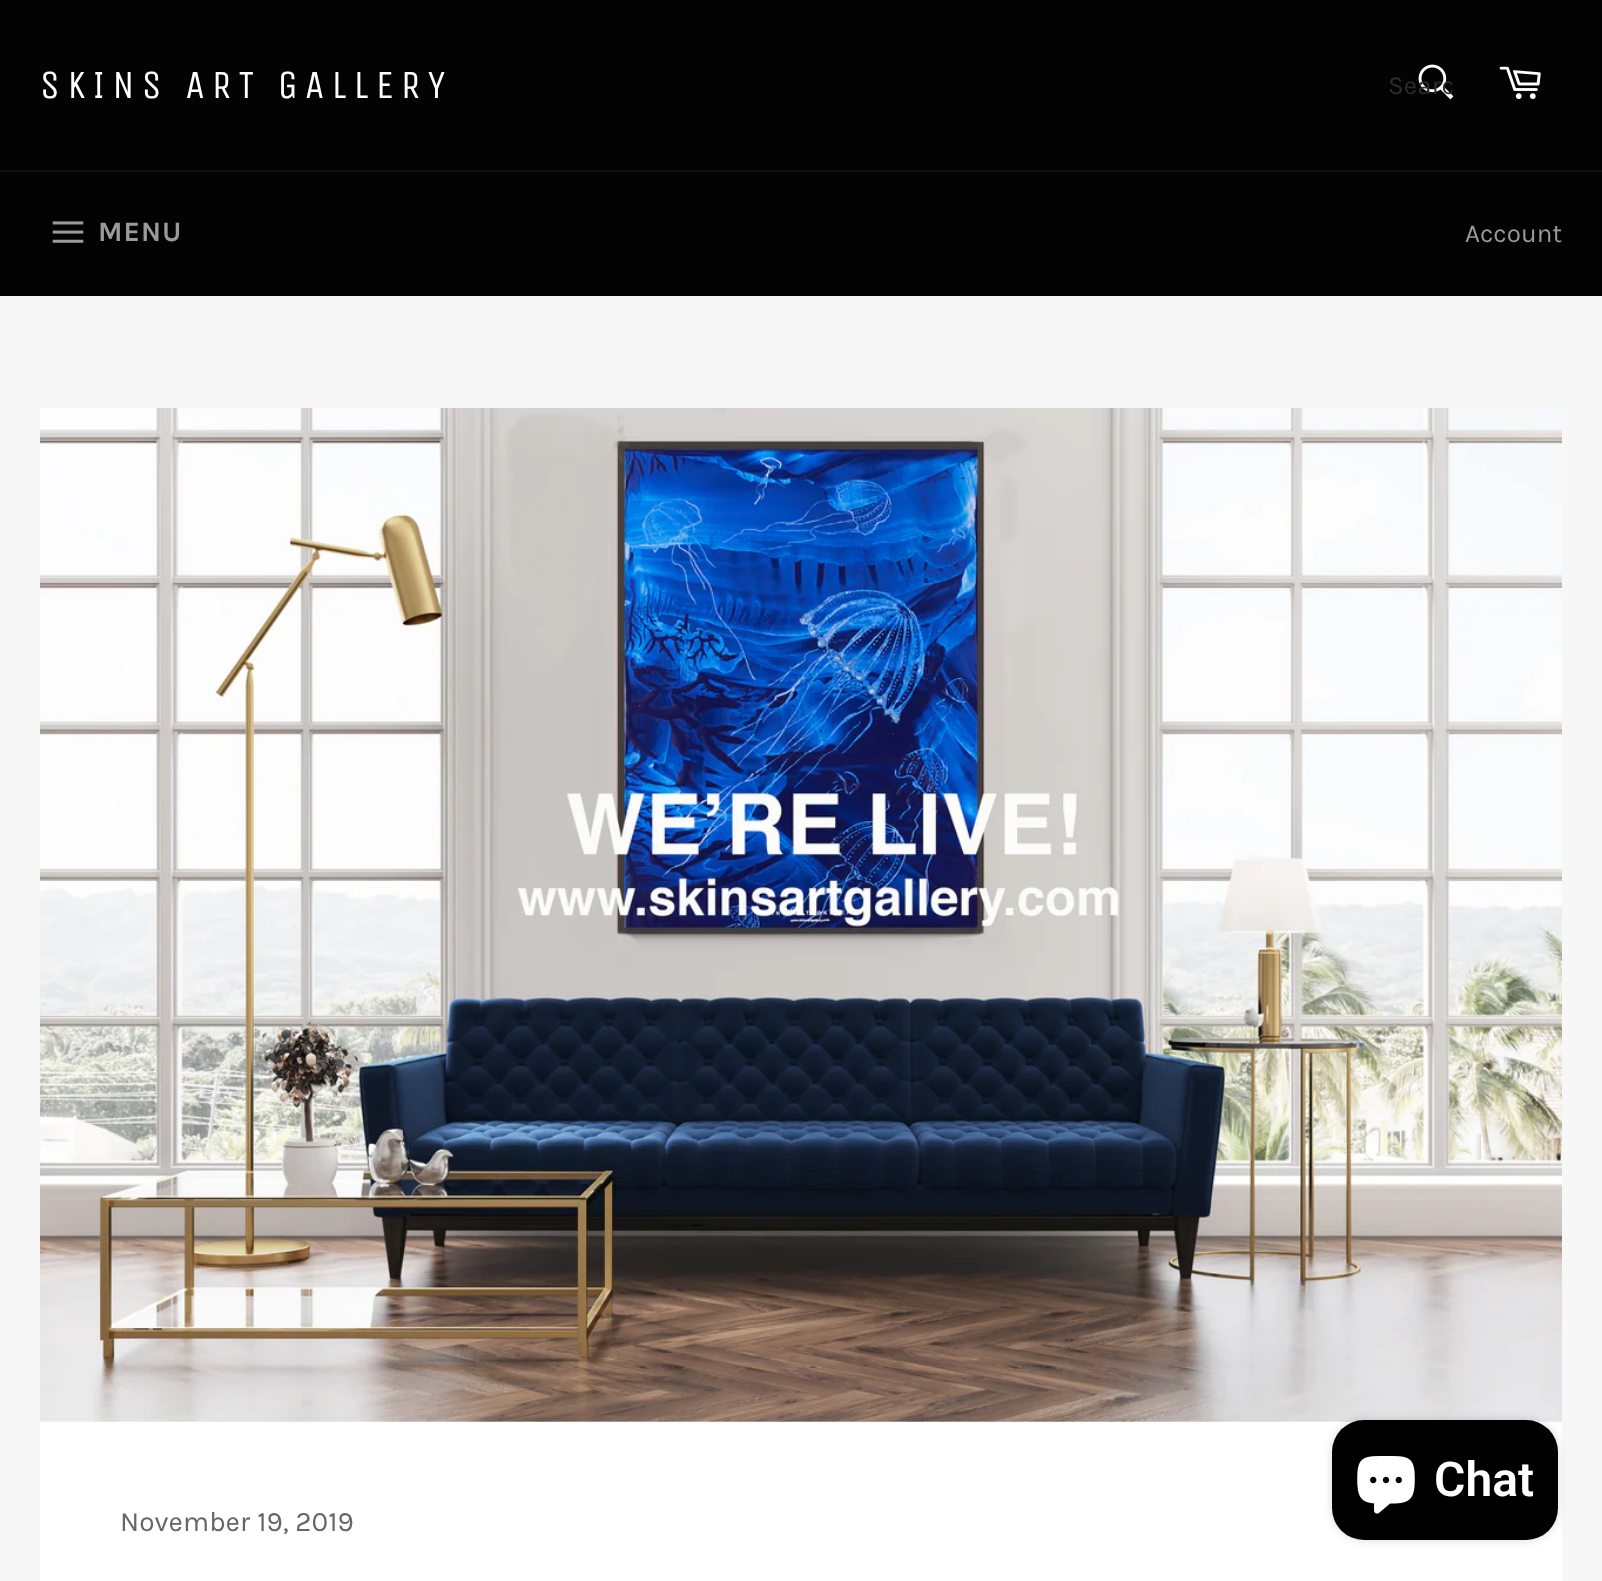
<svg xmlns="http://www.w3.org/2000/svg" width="1602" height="1581">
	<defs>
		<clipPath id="clip1"><rect x="1388" y="70" width="64" height="30" /></clipPath>
	</defs>
	<rect width="100%" height="100%" fill="#F7F7F7" />
	<rect x="0" y="0" width="1602" height="170" fill="#030303" />
	<text x="40" y="98" font-family="Unica One" font-size="40" letter-spacing="7.25" fill="#FFFFFF">SKINS ART GALLERY</text>
	<image x="1418" y="64" width="36" height="36" href="assets/img1.png" />
	<g clip-path="url(#clip1)">
		<text x="1388" y="94" font-family="Karla" font-size="26" fill="#2D2D2D">Searc</text>
	</g>
	<image x="1499" y="66" width="42" height="33" href="assets/img2.png" />
	<rect x="0" y="172" width="1602" height="124" fill="#030303" />
	<rect x="0" y="170" width="1602" height="2" fill="#101010" />
	<image x="52" y="221" width="32" height="22" href="assets/img3.png" />
	<text x="98" y="241" font-family="Karla" font-size="28" font-weight="700" letter-spacing="1" fill="#9A9A9A">MENU</text>
	<text x="1465" y="242" font-family="Karla" font-size="26" fill="#9A9A9A">Account</text>
	<rect x="40" y="1422" width="1522" height="159" fill="#FFFFFF" />
	<image x="40" y="408" width="1522" height="1014" href="assets/img5.png" />
	<rect x="1332" y="1420" width="226" height="120" rx="32" fill="#000000" fill-opacity="0.15" filter="blur(5px)" />
	<rect x="1332" y="1420" width="226" height="120" rx="32" fill="#000000" />
	<image x="1357" y="1456" width="58" height="58" href="assets/img4.png" />
	<text x="1434" y="1496" font-family="Roboto" font-size="48" font-weight="600" fill="#FFFFFF">Chat</text>
	<text x="120" y="1531" font-family="Karla" font-size="28" fill="#666666">November 19, 2019</text>
</svg>
